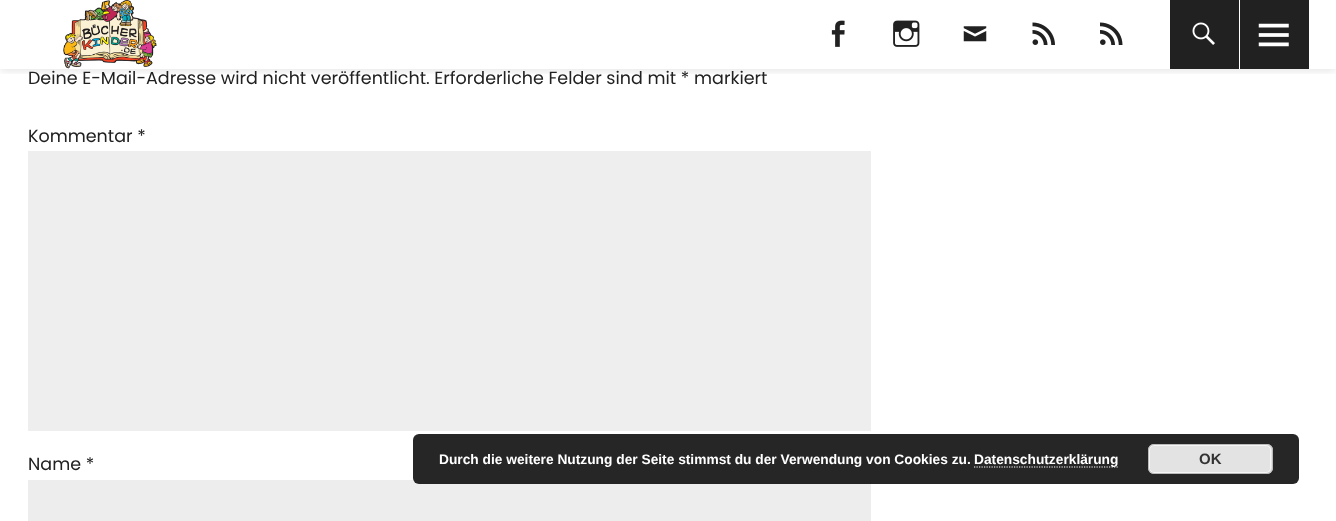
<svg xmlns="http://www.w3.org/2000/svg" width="1336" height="521">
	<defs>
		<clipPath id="clip1"><rect x="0" y="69" width="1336" height="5" /></clipPath>
	</defs>
	<rect width="100%" height="100%" fill="#FFFFFF" />
	<g clip-path="url(#clip1)">
		<rect x="0" y="3" width="1336" height="68" fill="#000000" fill-opacity="0.1" filter="blur(4px)" />
	</g>
	<rect x="1" y="68" width="1334" height="1" fill="#FFFFFF" fill-opacity="0.96" />
	<image x="63" y="0" width="94" height="69" href="assets/img1.png" />
	<image x="831" y="20" width="14" height="27" href="assets/img2.png" />
	<image x="893" y="20" width="27" height="27" href="assets/img3.png" />
	<image x="963" y="26" width="24" height="16" href="assets/img4.png" />
	<image x="1032" y="22" width="23" height="23" href="assets/img5.png" />
	<image x="1100" y="22" width="23" height="23" href="assets/img6.png" />
	<rect x="1170" y="0" width="69" height="69" fill="#000000" fill-opacity="0.87" />
	<image x="1192" y="22" width="23" height="23" href="assets/img7.png" />
	<rect x="1240" y="0" width="69" height="69" fill="#000000" fill-opacity="0.87" />
	<image x="1258" y="23" width="31" height="24" href="assets/img8.png" />
	<g font-family="Poppins" font-size="17.5" fill="#212121">
		<text x="28" y="84">Deine E-Mail-Adresse wird nicht veröffentlicht. Erforderliche Felder sind mit * markiert</text>
		<text x="28" y="142">Kommentar *</text>
	</g>
	<rect x="28" y="151" width="843" height="280" fill="#EEEEEE" />
	<text x="28" y="470" font-family="Poppins" font-size="17.5" fill="#212121">Name *</text>
	<rect x="28" y="480" width="843" height="41" fill="#EDEDED" />
	<rect x="413" y="434" width="886" height="50" rx="6" fill="#000000" fill-opacity="0.85" />
	<text x="439" y="464" font-family="Liberation Sans" font-size="13.75" font-weight="700" fill="#FFFFFF">Durch die weitere Nutzung der Seite stimmst du der Verwendung von Cookies zu.</text>
	<path d="M974 467H1119" fill="none" stroke="#FFFFFF" stroke-width="1.2" stroke-dasharray="1.25 1.25" />
	<text x="974" y="464" font-family="Liberation Sans" font-size="13.75" font-weight="700" fill="#FFFFFF">Datenschutzerklärung</text>
	<rect x="1148" y="444" width="125" height="30" rx="6" fill="#E3E3E3" />
	<rect x="1149.5" y="445.5" width="121" height="27" rx="4.5" fill="none" stroke="#F6F6F6" />
	<rect x="1148.5" y="444.5" width="124" height="29" rx="5.5" fill="none" stroke="#BBBBBB" />
	<text x="1199" y="464" font-family="Liberation Sans" font-size="15" font-weight="700" fill="#333333">OK</text>
</svg>
